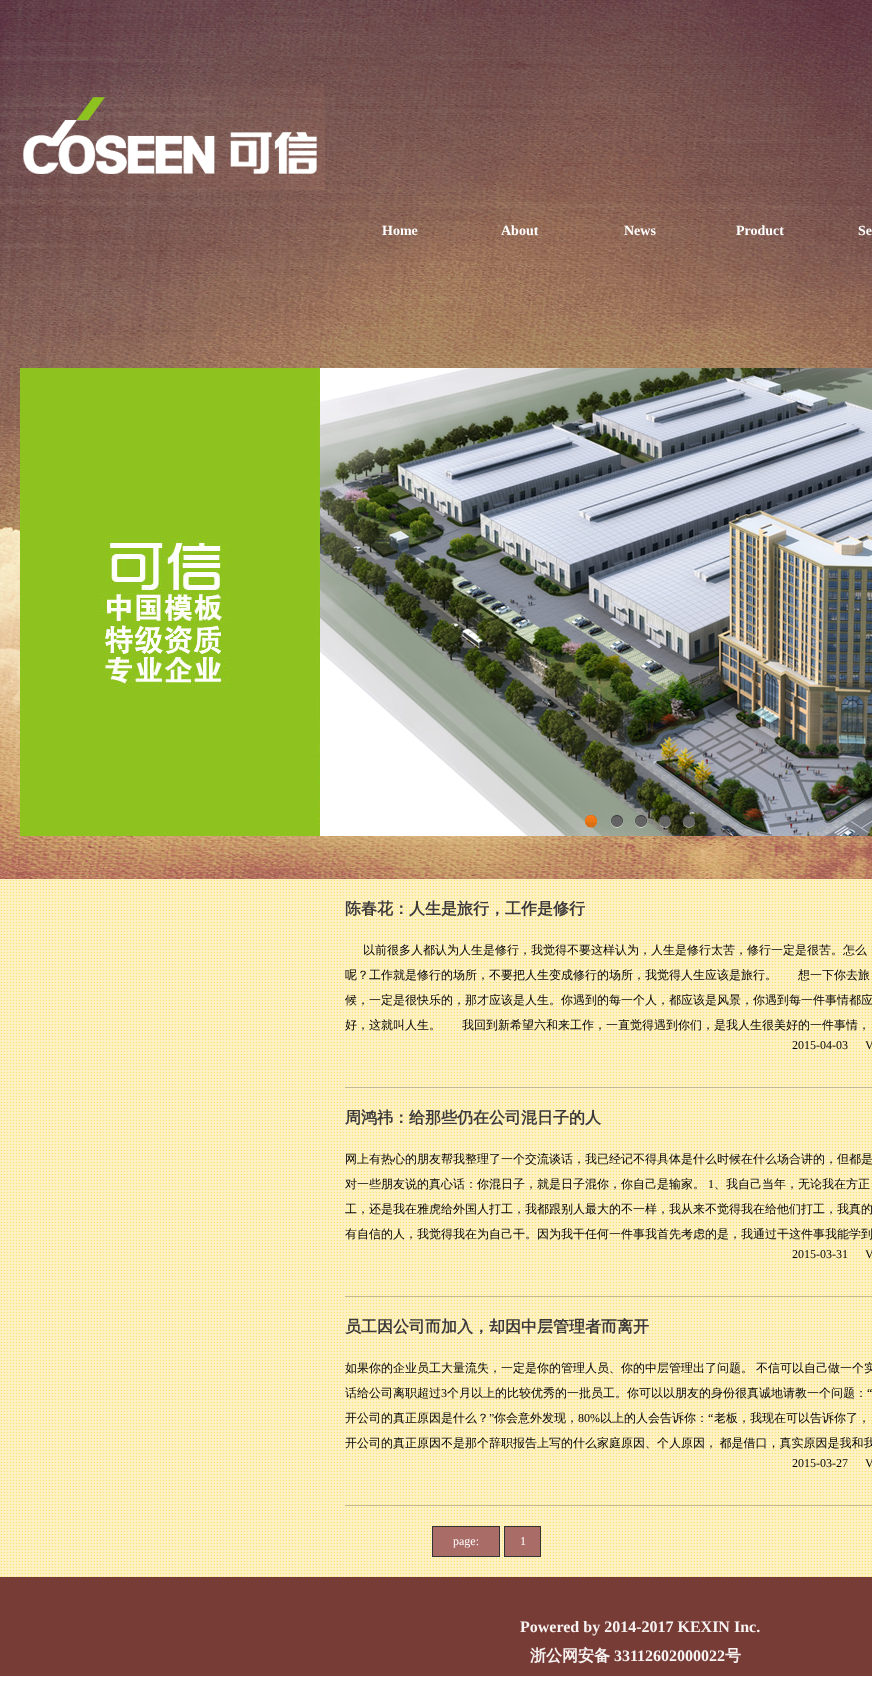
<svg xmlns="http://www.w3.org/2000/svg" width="872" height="1700">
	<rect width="100%" height="100%" fill="#FFFFFF" />
	<image x="0" y="0" width="872" height="879" href="assets/img1.png" />
	<image x="23" y="85" width="302" height="105" href="assets/img2.png" />
	<g font-family="Liberation Serif" font-size="14" font-weight="700" fill="#FFFFFF">
		<text x="382" y="235">Home</text>
		<text x="501" y="235">About</text>
		<text x="624" y="235">News</text>
		<text x="736" y="235">Product</text>
		<text x="858" y="235">Se</text>
	</g>
	<image x="20" y="368" width="852" height="468" href="assets/img3.png" />
	<image x="585" y="815" width="14" height="13" href="assets/img4.png" />
	<image x="610" y="815" width="13" height="13" href="assets/img5.png" />
	<image x="634" y="815" width="13" height="13" href="assets/img6.png" />
	<image x="658" y="815" width="13" height="13" href="assets/img7.png" />
	<image x="682" y="815" width="13" height="13" href="assets/img8.png" />
	<image x="0" y="879" width="872" height="698" href="assets/img9.png" />
	<rect x="345" y="1087" width="527" height="1" fill="#C1B994" />
	<text x="345" y="914" font-family="WenQuanYi Zen Hei" font-size="16" font-weight="700" fill="#3B393A">陈春花：人生是旅行，工作是修行</text>
	<g font-family="WenQuanYi Zen Hei" font-size="12" font-weight="500" fill="#000000">
		<text x="363" y="954">以前很多人都认为人生是修行，我觉得不要这样认为，人生是修行太苦，修行一定是很苦。怎么</text>
		<text x="345" y="979">呢？工作就是修行的场所，不要把人生变成修行的场所，我觉得人生应该是旅行。</text>
		<text x="798" y="979">想一下你去旅</text>
		<text x="345" y="1004">候，一定是很快乐的，那才应该是人生。你遇到的每一个人，都应该是风景，你遇到每一件事情都应</text>
		<text x="345" y="1029">好，这就叫人生。</text>
		<text x="462" y="1029">我回到新希望六和来工作，一直觉得遇到你们，是我人生很美好的一件事情，</text>
	</g>
	<g font-family="Liberation Serif" font-size="12" fill="#000000">
		<text x="792" y="1049">2015-04-03</text>
		<text x="865" y="1049">V</text>
	</g>
	<rect x="345" y="1296" width="527" height="1" fill="#C1B994" />
	<text x="345" y="1123" font-family="WenQuanYi Zen Hei" font-size="16" font-weight="700" fill="#3B393A">周鸿祎：给那些仍在公司混日子的人</text>
	<g font-family="WenQuanYi Zen Hei" font-size="12" font-weight="500" fill="#000000">
		<text x="345" y="1163">网上有热心的朋友帮我整理了一个交流谈话，我已经记不得具体是什么时候在什么场合讲的，但都是</text>
		<text x="345" y="1188">对一些朋友说的真心话：你混日子，就是日子混你，你自己是输家。</text>
	</g>
	<text x="708" y="1188" font-family="Liberation Serif" font-size="12" fill="#000000">1</text>
	<g font-family="WenQuanYi Zen Hei" font-size="12" font-weight="500" fill="#000000">
		<text x="714" y="1188">、我自己当年，无论我在方正</text>
		<text x="345" y="1213">工，还是我在雅虎给外国人打工，我都跟别人最大的不一样，我从来不觉得我在给他们打工，我真的</text>
		<text x="345" y="1238">有自信的人，我觉得我在为自己干。因为我干任何一件事我首先考虑的是，我通过干这件事我能学到</text>
	</g>
	<g font-family="Liberation Serif" font-size="12" fill="#000000">
		<text x="792" y="1258">2015-03-31</text>
		<text x="865" y="1258">V</text>
	</g>
	<rect x="345" y="1505" width="527" height="1" fill="#C1B994" />
	<text x="345" y="1332" font-family="WenQuanYi Zen Hei" font-size="16" font-weight="700" fill="#3B393A">员工因公司而加入，却因中层管理者而离开</text>
	<g font-family="WenQuanYi Zen Hei" font-size="12" font-weight="500" fill="#000000">
		<text x="345" y="1372">如果你的企业员工大量流失，一定是你的管理人员、你的中层管理出了问题。</text>
		<text x="756" y="1372">不信可以自己做一个实</text>
		<text x="345" y="1397">话给公司离职超过</text>
	</g>
	<text x="441" y="1397" font-family="Liberation Serif" font-size="12" fill="#000000">3</text>
	<text x="447" y="1397" font-family="WenQuanYi Zen Hei" font-size="12" font-weight="500" fill="#000000">个月以上的比较优秀的一批员工。你可以以朋友的身份很真诚地请教一个问题：</text>
	<text x="867" y="1397" font-family="Liberation Serif" font-size="12" fill="#000000">“</text>
	<text x="345" y="1422" font-family="WenQuanYi Zen Hei" font-size="12" font-weight="500" fill="#000000">开公司的真正原因是什么？</text>
	<text x="489" y="1422" font-family="Liberation Serif" font-size="12" fill="#000000">”</text>
	<text x="494" y="1422" font-family="WenQuanYi Zen Hei" font-size="12" font-weight="500" fill="#000000">你会意外发现，</text>
	<text x="578" y="1422" font-family="Liberation Serif" font-size="12" fill="#000000">80%</text>
	<text x="600" y="1422" font-family="WenQuanYi Zen Hei" font-size="12" font-weight="500" fill="#000000">以上的人会告诉你：</text>
	<text x="708" y="1422" font-family="Liberation Serif" font-size="12" fill="#000000">“</text>
	<g font-family="WenQuanYi Zen Hei" font-size="12" font-weight="500" fill="#000000">
		<text x="714" y="1422">老板，我现在可以告诉你了，</text>
		<text x="345" y="1447" word-spacing="-1">开公司的真正原因不是那个辞职报告上写的什么家庭原因、个人原因， 都是借口，真实原因是我和我</text>
	</g>
	<g font-family="Liberation Serif" font-size="12" fill="#000000">
		<text x="792" y="1467">2015-03-27</text>
		<text x="865" y="1467">V</text>
	</g>
	<rect x="432.5" y="1526.5" width="67" height="30" fill="#A96C66" stroke="#333333" />
	<text x="453" y="1545" font-family="Liberation Serif" font-size="12" fill="#FFFFFF">page:</text>
	<rect x="504.5" y="1526.5" width="36" height="30" fill="#A96C66" stroke="#333333" />
	<text x="520" y="1545" font-family="Liberation Serif" font-size="12" fill="#FFFFFF">1</text>
	<rect x="0" y="1577" width="872" height="99" fill="#783C37" />
	<text x="520" y="1632" font-family="Liberation Serif" font-size="16" font-weight="700" fill="#F7F3F2">Powered by 2014-2017 KEXIN Inc.</text>
	<text x="530" y="1661" font-family="WenQuanYi Zen Hei" font-size="16" font-weight="700" fill="#F7F3F2">浙公网安备</text>
	<text x="614" y="1661" font-family="Liberation Serif" font-size="16" font-weight="700" fill="#F7F3F2">33112602000022</text>
	<text x="725" y="1661" font-family="WenQuanYi Zen Hei" font-size="16" font-weight="700" fill="#F7F3F2">号</text>
</svg>
